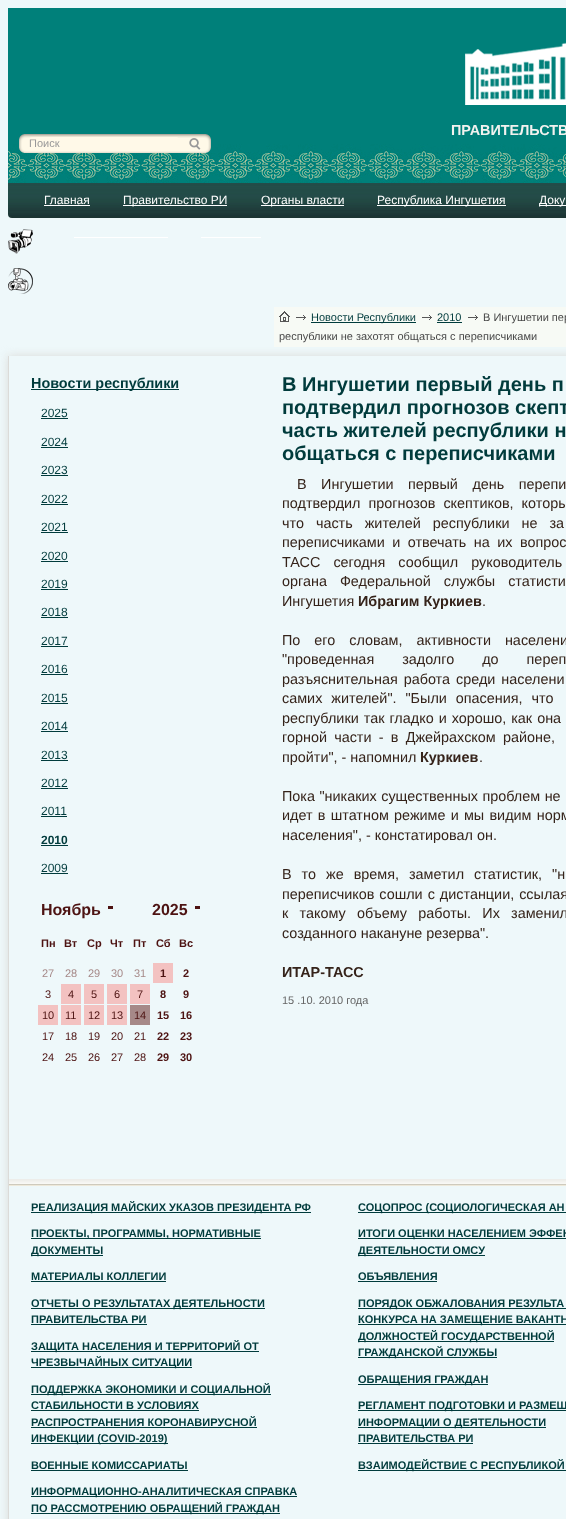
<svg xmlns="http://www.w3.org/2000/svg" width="566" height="1519">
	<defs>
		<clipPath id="clip1"><path d="M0 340H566V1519H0ZM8 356H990V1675H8Z" clip-rule="evenodd" /></clipPath>
	</defs>
	<rect width="100%" height="100%" fill="#EEF8FA" />
	<image x="8" y="8" width="558" height="175" href="assets/img1.png" />
	<image x="465" y="42" width="101" height="63" href="assets/img2.png" />
	<text x="451" y="135" word-spacing="2" font-family="Liberation Sans" font-size="14.4" font-weight="700" fill="#F2F2EF">ПРАВИТЕЛЬСТВ</text>
	<image x="19" y="134" width="192" height="19" href="assets/img3.png" />
	<rect x="29" y="137" width="150" height="13" rx="3" fill="#FFF9E8" />
	<text x="29" y="147" font-family="Liberation Sans" font-size="11" fill="#999999">Поиск</text>
	<image x="189" y="138" width="12" height="12" href="assets/img4.png" />
	<image x="8" y="183" width="558" height="35" href="assets/img5.png" />
	<text x="44" y="204" font-family="Liberation Sans" font-size="12" fill="#FFFFFF">Главная</text>
	<rect x="44" y="205" width="46" height="1" fill="#FFFFFF" />
	<rect x="123" y="205" width="104" height="1" fill="#FFFFFF" />
	<text x="123" y="204" font-family="Liberation Sans" font-size="12" fill="#FFFFFF">Правительство РИ</text>
	<rect x="261" y="205" width="83" height="1" fill="#FFFFFF" />
	<text x="261" y="204" font-family="Liberation Sans" font-size="12" fill="#FFFFFF">Органы власти</text>
	<rect x="377" y="205" width="129" height="1" fill="#FFFFFF" />
	<text x="377" y="204" font-family="Liberation Sans" font-size="12" fill="#FFFFFF">Республика Ингушетия</text>
	<rect x="539" y="205" width="27" height="1" fill="#FFFFFF" />
	<text x="539" y="204" font-family="Liberation Sans" font-size="12" fill="#FFFFFF">Доку</text>
	<rect x="74" y="237" width="94" height="1" fill="#FFFFFF" />
	<rect x="201" y="237" width="60" height="1" fill="#FFFFFF" />
	<image x="8" y="229" width="25" height="25" href="assets/img6.png" />
	<image x="8" y="268" width="25" height="26" href="assets/img7.png" />
	<rect x="274" y="307" width="292" height="40" fill="#F7FAF5" />
	<image x="279" y="311" width="11" height="11" href="assets/img8.png" />
	<image x="296" y="315" width="10" height="5" href="assets/img9.png" />
	<rect x="311" y="322" width="105" height="1" fill="#003B3C" />
	<text x="311" y="321" font-family="Liberation Sans" font-size="11" fill="#003B3C">Новости Республики</text>
	<image x="422" y="315" width="10" height="5" href="assets/img9.png" />
	<text x="437" y="321" font-family="Liberation Sans" font-size="11" fill="#003B3C">2010</text>
	<rect x="437" y="322" width="25" height="1" fill="#003B3C" />
	<image x="468" y="315" width="10" height="5" href="assets/img9.png" />
	<g font-family="Liberation Sans" font-size="11" fill="#484848">
		<text x="483" y="321">В Ингушетии пер</text>
		<text x="279" y="340">республики не захотят общаться с переписчиками</text>
	</g>
	<g clip-path="url(#clip1)">
		<rect x="8" y="356" width="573" height="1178" fill="#DBDBD8" filter="blur(5px)" />
	</g>
	<rect x="8" y="356" width="1" height="1163" fill="#DBDBD8" />
	<rect x="31" y="389" width="148" height="1" fill="#003B3C" />
	<text x="31" y="388" font-family="Liberation Sans" font-size="14.4" font-weight="700" fill="#003B3C">Новости республики</text>
	<text x="41" y="417" font-family="Liberation Sans" font-size="12" fill="#003B3C">2025</text>
	<rect x="41" y="418" width="27" height="1" fill="#003B3C" />
	<text x="41" y="446" font-family="Liberation Sans" font-size="12" fill="#003B3C">2024</text>
	<rect x="41" y="447" width="27" height="1" fill="#003B3C" />
	<text x="41" y="474" font-family="Liberation Sans" font-size="12" fill="#003B3C">2023</text>
	<rect x="41" y="475" width="27" height="1" fill="#003B3C" />
	<text x="41" y="503" font-family="Liberation Sans" font-size="12" fill="#003B3C">2022</text>
	<rect x="41" y="504" width="27" height="1" fill="#003B3C" />
	<text x="41" y="531" font-family="Liberation Sans" font-size="12" fill="#003B3C">2021</text>
	<rect x="41" y="532" width="27" height="1" fill="#003B3C" />
	<text x="41" y="560" font-family="Liberation Sans" font-size="12" fill="#003B3C">2020</text>
	<rect x="41" y="561" width="27" height="1" fill="#003B3C" />
	<text x="41" y="588" font-family="Liberation Sans" font-size="12" fill="#003B3C">2019</text>
	<rect x="41" y="589" width="27" height="1" fill="#003B3C" />
	<text x="41" y="616" font-family="Liberation Sans" font-size="12" fill="#003B3C">2018</text>
	<rect x="41" y="617" width="27" height="1" fill="#003B3C" />
	<text x="41" y="645" font-family="Liberation Sans" font-size="12" fill="#003B3C">2017</text>
	<rect x="41" y="646" width="27" height="1" fill="#003B3C" />
	<text x="41" y="673" font-family="Liberation Sans" font-size="12" fill="#003B3C">2016</text>
	<rect x="41" y="674" width="27" height="1" fill="#003B3C" />
	<text x="41" y="702" font-family="Liberation Sans" font-size="12" fill="#003B3C">2015</text>
	<rect x="41" y="703" width="27" height="1" fill="#003B3C" />
	<text x="41" y="730" font-family="Liberation Sans" font-size="12" fill="#003B3C">2014</text>
	<rect x="41" y="731" width="27" height="1" fill="#003B3C" />
	<text x="41" y="759" font-family="Liberation Sans" font-size="12" fill="#003B3C">2013</text>
	<rect x="41" y="760" width="27" height="1" fill="#003B3C" />
	<text x="41" y="787" font-family="Liberation Sans" font-size="12" fill="#003B3C">2012</text>
	<rect x="41" y="788" width="27" height="1" fill="#003B3C" />
	<text x="41" y="815" font-family="Liberation Sans" font-size="12" fill="#003B3C">2011</text>
	<rect x="41" y="816" width="26" height="1" fill="#003B3C" />
	<text x="41" y="844" font-family="Liberation Sans" font-size="12" font-weight="700" fill="#003B3C">2010</text>
	<rect x="41" y="845" width="27" height="1" fill="#003B3C" />
	<text x="41" y="872" font-family="Liberation Sans" font-size="12" fill="#003B3C">2009</text>
	<rect x="41" y="873" width="27" height="1" fill="#003B3C" />
	<rect x="108" y="906" width="5" height="3" fill="#4D1312" />
	<text x="41" y="915" font-family="Liberation Sans" font-size="16" font-weight="700" fill="#4D1312">Ноябрь</text>
	<rect x="195" y="906" width="5" height="3" fill="#4D1312" />
	<text x="152" y="915" font-family="Liberation Sans" font-size="16" font-weight="700" fill="#4D1312">2025</text>
	<g font-family="Liberation Sans" font-size="11" font-weight="700" fill="#4D1312">
		<text x="41" y="947">Пн</text>
		<text x="64" y="947">Вт</text>
		<text x="87" y="947">Ср</text>
		<text x="110" y="947">Чт</text>
		<text x="133" y="947">Пт</text>
		<text x="156" y="947">Сб</text>
		<text x="179" y="947">Вс</text>
	</g>
	<g font-family="Liberation Sans" font-size="11" fill="#A68988">
		<text x="42" y="977">27</text>
		<text x="65" y="977">28</text>
		<text x="88" y="977">29</text>
		<text x="111" y="977">30</text>
		<text x="134" y="977">31</text>
	</g>
	<rect x="153" y="963" width="20" height="20" fill="#F3C2C1" />
	<g font-family="Liberation Sans" font-size="11" font-weight="700" fill="#4D1312">
		<text x="160" y="977">1</text>
		<text x="183" y="977">2</text>
	</g>
	<text x="45" y="998" font-family="Liberation Sans" font-size="11" fill="#4D1312">3</text>
	<rect x="61" y="984" width="20" height="20" fill="#F3C2C1" />
	<text x="68" y="998" font-family="Liberation Sans" font-size="11" fill="#4D1312">4</text>
	<rect x="84" y="984" width="20" height="20" fill="#F3C2C1" />
	<text x="91" y="998" font-family="Liberation Sans" font-size="11" fill="#4D1312">5</text>
	<rect x="107" y="984" width="20" height="20" fill="#F3C2C1" />
	<text x="114" y="998" font-family="Liberation Sans" font-size="11" fill="#4D1312">6</text>
	<rect x="130" y="984" width="20" height="20" fill="#F3C2C1" />
	<text x="137" y="998" font-family="Liberation Sans" font-size="11" fill="#4D1312">7</text>
	<g font-family="Liberation Sans" font-size="11" font-weight="700" fill="#4D1312">
		<text x="160" y="998">8</text>
		<text x="183" y="998">9</text>
	</g>
	<rect x="38" y="1005" width="20" height="20" fill="#F3C2C1" />
	<text x="42" y="1019" font-family="Liberation Sans" font-size="11" fill="#4D1312">10</text>
	<rect x="61" y="1005" width="20" height="20" fill="#F3C2C1" />
	<text x="65" y="1019" font-family="Liberation Sans" font-size="11" fill="#4D1312">11</text>
	<rect x="84" y="1005" width="20" height="20" fill="#F3C2C1" />
	<text x="88" y="1019" font-family="Liberation Sans" font-size="11" fill="#4D1312">12</text>
	<rect x="107" y="1005" width="20" height="20" fill="#F3C2C1" />
	<text x="111" y="1019" font-family="Liberation Sans" font-size="11" fill="#4D1312">13</text>
	<rect x="130" y="1005" width="20" height="20" fill="#A68988" />
	<text x="134" y="1019" font-family="Liberation Sans" font-size="11" fill="#4D1312">14</text>
	<g font-family="Liberation Sans" font-size="11" font-weight="700" fill="#4D1312">
		<text x="157" y="1019">15</text>
		<text x="180" y="1019">16</text>
	</g>
	<g font-family="Liberation Sans" font-size="11" fill="#4D1312">
		<text x="42" y="1040">17</text>
		<text x="65" y="1040">18</text>
		<text x="88" y="1040">19</text>
		<text x="111" y="1040">20</text>
		<text x="134" y="1040">21</text>
	</g>
	<g font-family="Liberation Sans" font-size="11" font-weight="700" fill="#4D1312">
		<text x="157" y="1040">22</text>
		<text x="180" y="1040">23</text>
	</g>
	<g font-family="Liberation Sans" font-size="11" fill="#4D1312">
		<text x="42" y="1061">24</text>
		<text x="65" y="1061">25</text>
		<text x="88" y="1061">26</text>
		<text x="111" y="1061">27</text>
		<text x="134" y="1061">28</text>
	</g>
	<g font-family="Liberation Sans" font-size="11" font-weight="700" fill="#4D1312">
		<text x="157" y="1061">29</text>
		<text x="180" y="1061">30</text>
	</g>
	<g font-family="Liberation Sans" font-size="20" font-weight="700" fill="#003B3C">
		<text x="282" y="391">В Ингушетии первый день п</text>
		<text x="282" y="414">подтвердил прогнозов скепт</text>
		<text x="282" y="437">часть жителей республики н</text>
		<text x="282" y="460">общаться с переписчиками</text>
	</g>
	<g font-family="Liberation Sans" font-size="14.4" fill="#35231A">
		<text x="297" y="489" word-spacing="10.5">В Ингушетии первый день перепи</text>
		<text x="282" y="508" word-spacing="4">подтвердил прогнозов скептиков, которы</text>
		<text x="282" y="528" word-spacing="8">что часть жителей республики не за</text>
		<text x="282" y="547" word-spacing="3.5">переписчиками и отвечать на их вопрос</text>
		<text x="282" y="567" word-spacing="9">ТАСС сегодня сообщил руководитель</text>
		<text x="282" y="586" word-spacing="9">органа Федеральной службы статисти</text>
		<text x="282" y="606">Ингушетия</text>
	</g>
	<text x="358" y="606" font-family="Liberation Sans" font-size="14.4" font-weight="700" fill="#35231A">Ибрагим Куркиев</text>
	<g font-family="Liberation Sans" font-size="14.4" fill="#35231A">
		<text x="482" y="606">.</text>
		<text x="282" y="645" word-spacing="10">По его словам, активности населени</text>
		<text x="282" y="664" word-spacing="24">"проведенная задолго до переп</text>
		<text x="282" y="684" word-spacing="2">разъяснительная работа среди населени</text>
		<text x="282" y="703" word-spacing="5">самих жителей". "Были опасения, что</text>
		<text x="282" y="723" word-spacing="1">республики так гладко и хорошо, как она</text>
		<text x="282" y="742" word-spacing="3.25">горной части - в Джейрахском районе,</text>
		<text x="282" y="762">пройти", - напомнил</text>
	</g>
	<text x="420" y="762" font-family="Liberation Sans" font-size="14.4" font-weight="700" fill="#35231A">Куркиев</text>
	<g font-family="Liberation Sans" font-size="14.4" fill="#35231A">
		<text x="479" y="762">.</text>
		<text x="282" y="801" word-spacing="0.5">Пока "никаких существенных проблем не</text>
		<text x="282" y="820" word-spacing="1.25">идет в штатном режиме и мы видим норм</text>
		<text x="282" y="840">населения", - констатировал он.</text>
		<text x="282" y="879" word-spacing="6">В то же время, заметил статистик, "н</text>
		<text x="282" y="899" word-spacing="1">переписчиков сошли с дистанции, ссылая</text>
		<text x="282" y="918" word-spacing="7.25">к такому объему работы. Их заменил</text>
		<text x="282" y="938">созданного накануне резерва".</text>
	</g>
	<text x="282" y="977" font-family="Liberation Sans" font-size="14.4" font-weight="700" fill="#35231A">ИТАР-ТАСС</text>
	<text x="282" y="1004" font-family="Liberation Sans" font-size="11" fill="#666666">15 .10. 2010 года</text>
	<image x="9" y="1179" width="557" height="7" href="assets/img10.png" />
	<rect x="31" y="1212" width="280" height="1" fill="#003B3C" />
	<text x="31" y="1211" font-family="Liberation Sans" font-size="11" font-weight="700" fill="#003B3C">РЕАЛИЗАЦИЯ МАЙСКИХ УКАЗОВ ПРЕЗИДЕНТА РФ</text>
	<rect x="31" y="1238" width="230" height="1" fill="#003B3C" />
	<text x="31" y="1237" font-family="Liberation Sans" font-size="11" font-weight="700" fill="#003B3C">ПРОЕКТЫ, ПРОГРАММЫ, НОРМАТИВНЫЕ</text>
	<rect x="31" y="1255" width="72" height="1" fill="#003B3C" />
	<g font-family="Liberation Sans" font-size="11" font-weight="700" fill="#003B3C">
		<text x="31" y="1254">ДОКУМЕНТЫ</text>
		<text x="31" y="1280">МАТЕРИАЛЫ КОЛЛЕГИИ</text>
	</g>
	<rect x="31" y="1281" width="135" height="1" fill="#003B3C" />
	<rect x="31" y="1308" width="234" height="1" fill="#003B3C" />
	<g font-family="Liberation Sans" font-size="11" font-weight="700" fill="#003B3C">
		<text x="31" y="1307">ОТЧЕТЫ О РЕЗУЛЬТАТАХ ДЕЯТЕЛЬНОСТИ</text>
		<text x="31" y="1323">ПРАВИТЕЛЬСТВА РИ</text>
	</g>
	<rect x="31" y="1324" width="116" height="1" fill="#003B3C" />
	<rect x="31" y="1351" width="228" height="1" fill="#003B3C" />
	<text x="31" y="1350" font-family="Liberation Sans" font-size="11" font-weight="700" fill="#003B3C">ЗАЩИТА НАСЕЛЕНИЯ И ТЕРРИТОРИЙ ОТ</text>
	<rect x="31" y="1367" width="161" height="1" fill="#003B3C" />
	<text x="31" y="1366" font-family="Liberation Sans" font-size="11" font-weight="700" fill="#003B3C">ЧРЕЗВЫЧАЙНЫХ СИТУАЦИИ</text>
	<rect x="31" y="1394" width="240" height="1" fill="#003B3C" />
	<g font-family="Liberation Sans" font-size="11" font-weight="700" fill="#003B3C">
		<text x="31" y="1393">ПОДДЕРЖКА ЭКОНОМИКИ И СОЦИАЛЬНОЙ</text>
		<text x="31" y="1409">СТАБИЛЬНОСТИ В УСЛОВИЯХ</text>
	</g>
	<rect x="31" y="1410" width="168" height="1" fill="#003B3C" />
	<text x="31" y="1426" font-family="Liberation Sans" font-size="11" font-weight="700" fill="#003B3C">РАСПРОСТРАНЕНИЯ КОРОНАВИРУСНОЙ</text>
	<rect x="31" y="1427" width="226" height="1" fill="#003B3C" />
	<rect x="31" y="1443" width="137" height="1" fill="#003B3C" />
	<g font-family="Liberation Sans" font-size="11" font-weight="700" fill="#003B3C">
		<text x="31" y="1442">ИНФЕКЦИИ (COVID-2019)</text>
		<text x="31" y="1469">ВОЕННЫЕ КОМИССАРИАТЫ</text>
	</g>
	<rect x="31" y="1470" width="157" height="1" fill="#003B3C" />
	<rect x="31" y="1496" width="266" height="1" fill="#003B3C" />
	<text x="31" y="1495" font-family="Liberation Sans" font-size="11" font-weight="700" fill="#003B3C">ИНФОРМАЦИОННО-АНАЛИТИЧЕСКАЯ СПРАВКА</text>
	<rect x="31" y="1513" width="249" height="1" fill="#003B3C" />
	<text x="31" y="1512" font-family="Liberation Sans" font-size="11" font-weight="700" fill="#003B3C">ПО РАССМОТРЕНИЮ ОБРАЩЕНИЙ ГРАЖДАН</text>
	<rect x="358" y="1212" width="208" height="1" fill="#003B3C" />
	<text x="358" y="1211" font-family="Liberation Sans" font-size="11" font-weight="700" fill="#003B3C">СОЦОПРОС (СОЦИОЛОГИЧЕСКАЯ АН</text>
	<rect x="358" y="1238" width="208" height="1" fill="#003B3C" />
	<text x="358" y="1237" font-family="Liberation Sans" font-size="11" font-weight="700" fill="#003B3C">ИТОГИ ОЦЕНКИ НАСЕЛЕНИЕМ ЭФФЕК</text>
	<rect x="358" y="1255" width="127" height="1" fill="#003B3C" />
	<g font-family="Liberation Sans" font-size="11" font-weight="700" fill="#003B3C">
		<text x="358" y="1254">ДЕЯТЕЛЬНОСТИ ОМСУ</text>
		<text x="358" y="1280">ОБЪЯВЛЕНИЯ</text>
	</g>
	<rect x="358" y="1281" width="79" height="1" fill="#003B3C" />
	<rect x="358" y="1308" width="208" height="1" fill="#003B3C" />
	<text x="358" y="1307" font-family="Liberation Sans" font-size="11" font-weight="700" fill="#003B3C">ПОРЯДОК ОБЖАЛОВАНИЯ РЕЗУЛЬТА</text>
	<rect x="358" y="1324" width="208" height="1" fill="#003B3C" />
	<text x="358" y="1323" font-family="Liberation Sans" font-size="11" font-weight="700" fill="#003B3C">КОНКУРСА НА ЗАМЕЩЕНИЕ ВАКАНТН</text>
	<rect x="358" y="1341" width="196" height="1" fill="#003B3C" />
	<text x="358" y="1340" font-family="Liberation Sans" font-size="11" font-weight="700" fill="#003B3C">ДОЛЖНОСТЕЙ ГОСУДАРСТВЕННОЙ</text>
	<rect x="358" y="1357" width="139" height="1" fill="#003B3C" />
	<text x="358" y="1356" font-family="Liberation Sans" font-size="11" font-weight="700" fill="#003B3C">ГРАЖДАНСКОЙ СЛУЖБЫ</text>
	<rect x="358" y="1384" width="130" height="1" fill="#003B3C" />
	<text x="358" y="1383" font-family="Liberation Sans" font-size="11" font-weight="700" fill="#003B3C">ОБРАЩЕНИЯ ГРАЖДАН</text>
	<rect x="358" y="1410" width="208" height="1" fill="#003B3C" />
	<text x="358" y="1409" font-family="Liberation Sans" font-size="11" font-weight="700" fill="#003B3C">РЕГЛАМЕНТ ПОДГОТОВКИ И РАЗМЕЩ</text>
	<rect x="358" y="1427" width="188" height="1" fill="#003B3C" />
	<g font-family="Liberation Sans" font-size="11" font-weight="700" fill="#003B3C">
		<text x="358" y="1426">ИНФОРМАЦИИ О ДЕЯТЕЛЬНОСТИ</text>
		<text x="358" y="1442">ПРАВИТЕЛЬСТВА РИ</text>
	</g>
	<rect x="358" y="1443" width="115" height="1" fill="#003B3C" />
	<rect x="358" y="1470" width="208" height="1" fill="#003B3C" />
	<text x="358" y="1469" font-family="Liberation Sans" font-size="11" font-weight="700" fill="#003B3C">ВЗАИМОДЕЙСТВИЕ С РЕСПУБЛИКОЙ</text>
</svg>
